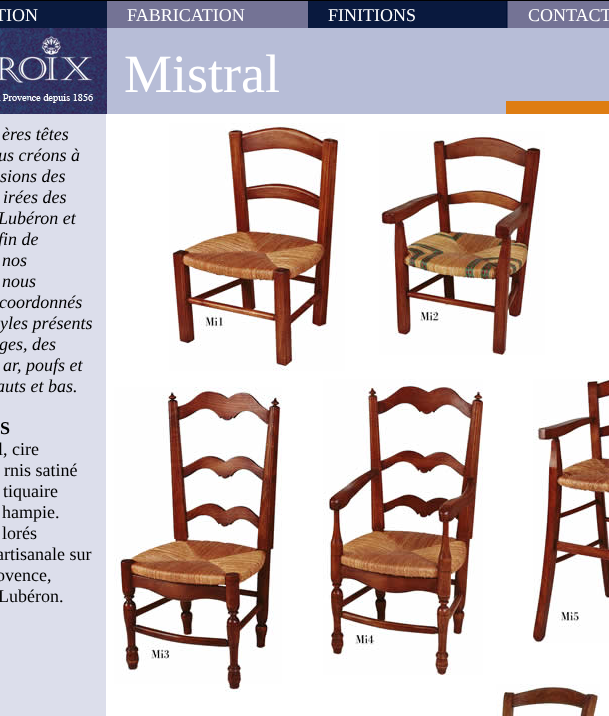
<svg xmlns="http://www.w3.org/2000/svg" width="609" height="716">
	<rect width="100%" height="100%" fill="#FFFFFF" />
	<rect x="-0.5" y="0.5" width="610" height="601" fill="none" stroke="#000000" />
	<rect x="0" y="1" width="107" height="27" fill="#0A1A3E" />
	<text x="-5" y="21" font-family="Liberation Serif" font-size="18" fill="#FFFFFF">TION</text>
	<rect x="107" y="1" width="201" height="27" fill="#747395" />
	<text x="127" y="21" font-family="Liberation Serif" font-size="18" fill="#FFFFFF">FABRICATION</text>
	<image x="308" y="1" width="200" height="27" href="assets/img1.png" />
	<text x="328" y="21" font-family="Liberation Serif" font-size="18" fill="#FFFFFF">FINITIONS</text>
	<rect x="508" y="1" width="101" height="27" fill="#747395" />
	<text x="528" y="21" font-family="Liberation Serif" font-size="18" fill="#FFFFFF">CONTACT</text>
	<rect x="107" y="28" width="502" height="86" fill="#B7BDD7" />
	<image x="0" y="28" width="107" height="86" href="assets/img2.png" />
	<text x="124" y="92" font-family="Liberation Serif" font-size="54" fill="#FFFFFF">Mistral</text>
	<rect x="506" y="101" width="103" height="13" fill="#DE7D12" />
	<rect x="0" y="114" width="106" height="602" fill="#DCDEEB" />
	<g font-family="Liberation Serif" font-size="18" font-style="italic" fill="#000000">
		<text x="2" y="140">ères têtes</text>
		<text x="-2" y="161">us créons à</text>
		<text x="0" y="182">sions des</text>
		<text x="3" y="203">irées des</text>
		<text x="-2" y="224">Lubéron et</text>
		<text x="-2" y="245">fin de</text>
		<text x="2" y="266">nos</text>
		<text x="2" y="287">nous</text>
		<text x="-1" y="308">coordonnés</text>
		<text x="0" y="329">yles présents</text>
		<text x="-1" y="350">ges, des</text>
		<text x="3" y="371">ar, poufs et</text>
		<text x="-4" y="392">auts et bas.</text>
	</g>
	<text x="0" y="434" font-family="Liberation Serif" font-size="18" font-weight="700" fill="#000000">S</text>
	<g font-family="Liberation Serif" font-size="18" fill="#000000">
		<text x="-2" y="455">l, cire</text>
		<text x="4" y="476">rnis satiné</text>
		<text x="3" y="497">tiquaire</text>
		<text x="2" y="518">hampie.</text>
		<text x="2" y="539">lorés</text>
		<text x="-4" y="560">artisanale sur</text>
		<text x="-4" y="581">ovence,</text>
		<text x="-2" y="602">Lubéron.</text>
	</g>
	<rect x="106" y="601" width="503" height="1" fill="#FFFFFF" />
	<image x="169" y="123" width="176" height="248" href="assets/img3.png" />
	<image x="379" y="131" width="166" height="224" href="assets/img4.png" />
	<image x="114" y="387" width="168" height="297" href="assets/img5.png" />
	<image x="323" y="379" width="160" height="296" href="assets/img6.png" />
	<image x="533" y="379" width="76" height="264" href="assets/img7.png" />
	<image x="225" y="684" width="16" height="8" href="assets/img8.png" />
	<image x="496" y="684" width="104" height="32" href="assets/img9.png" />
</svg>
